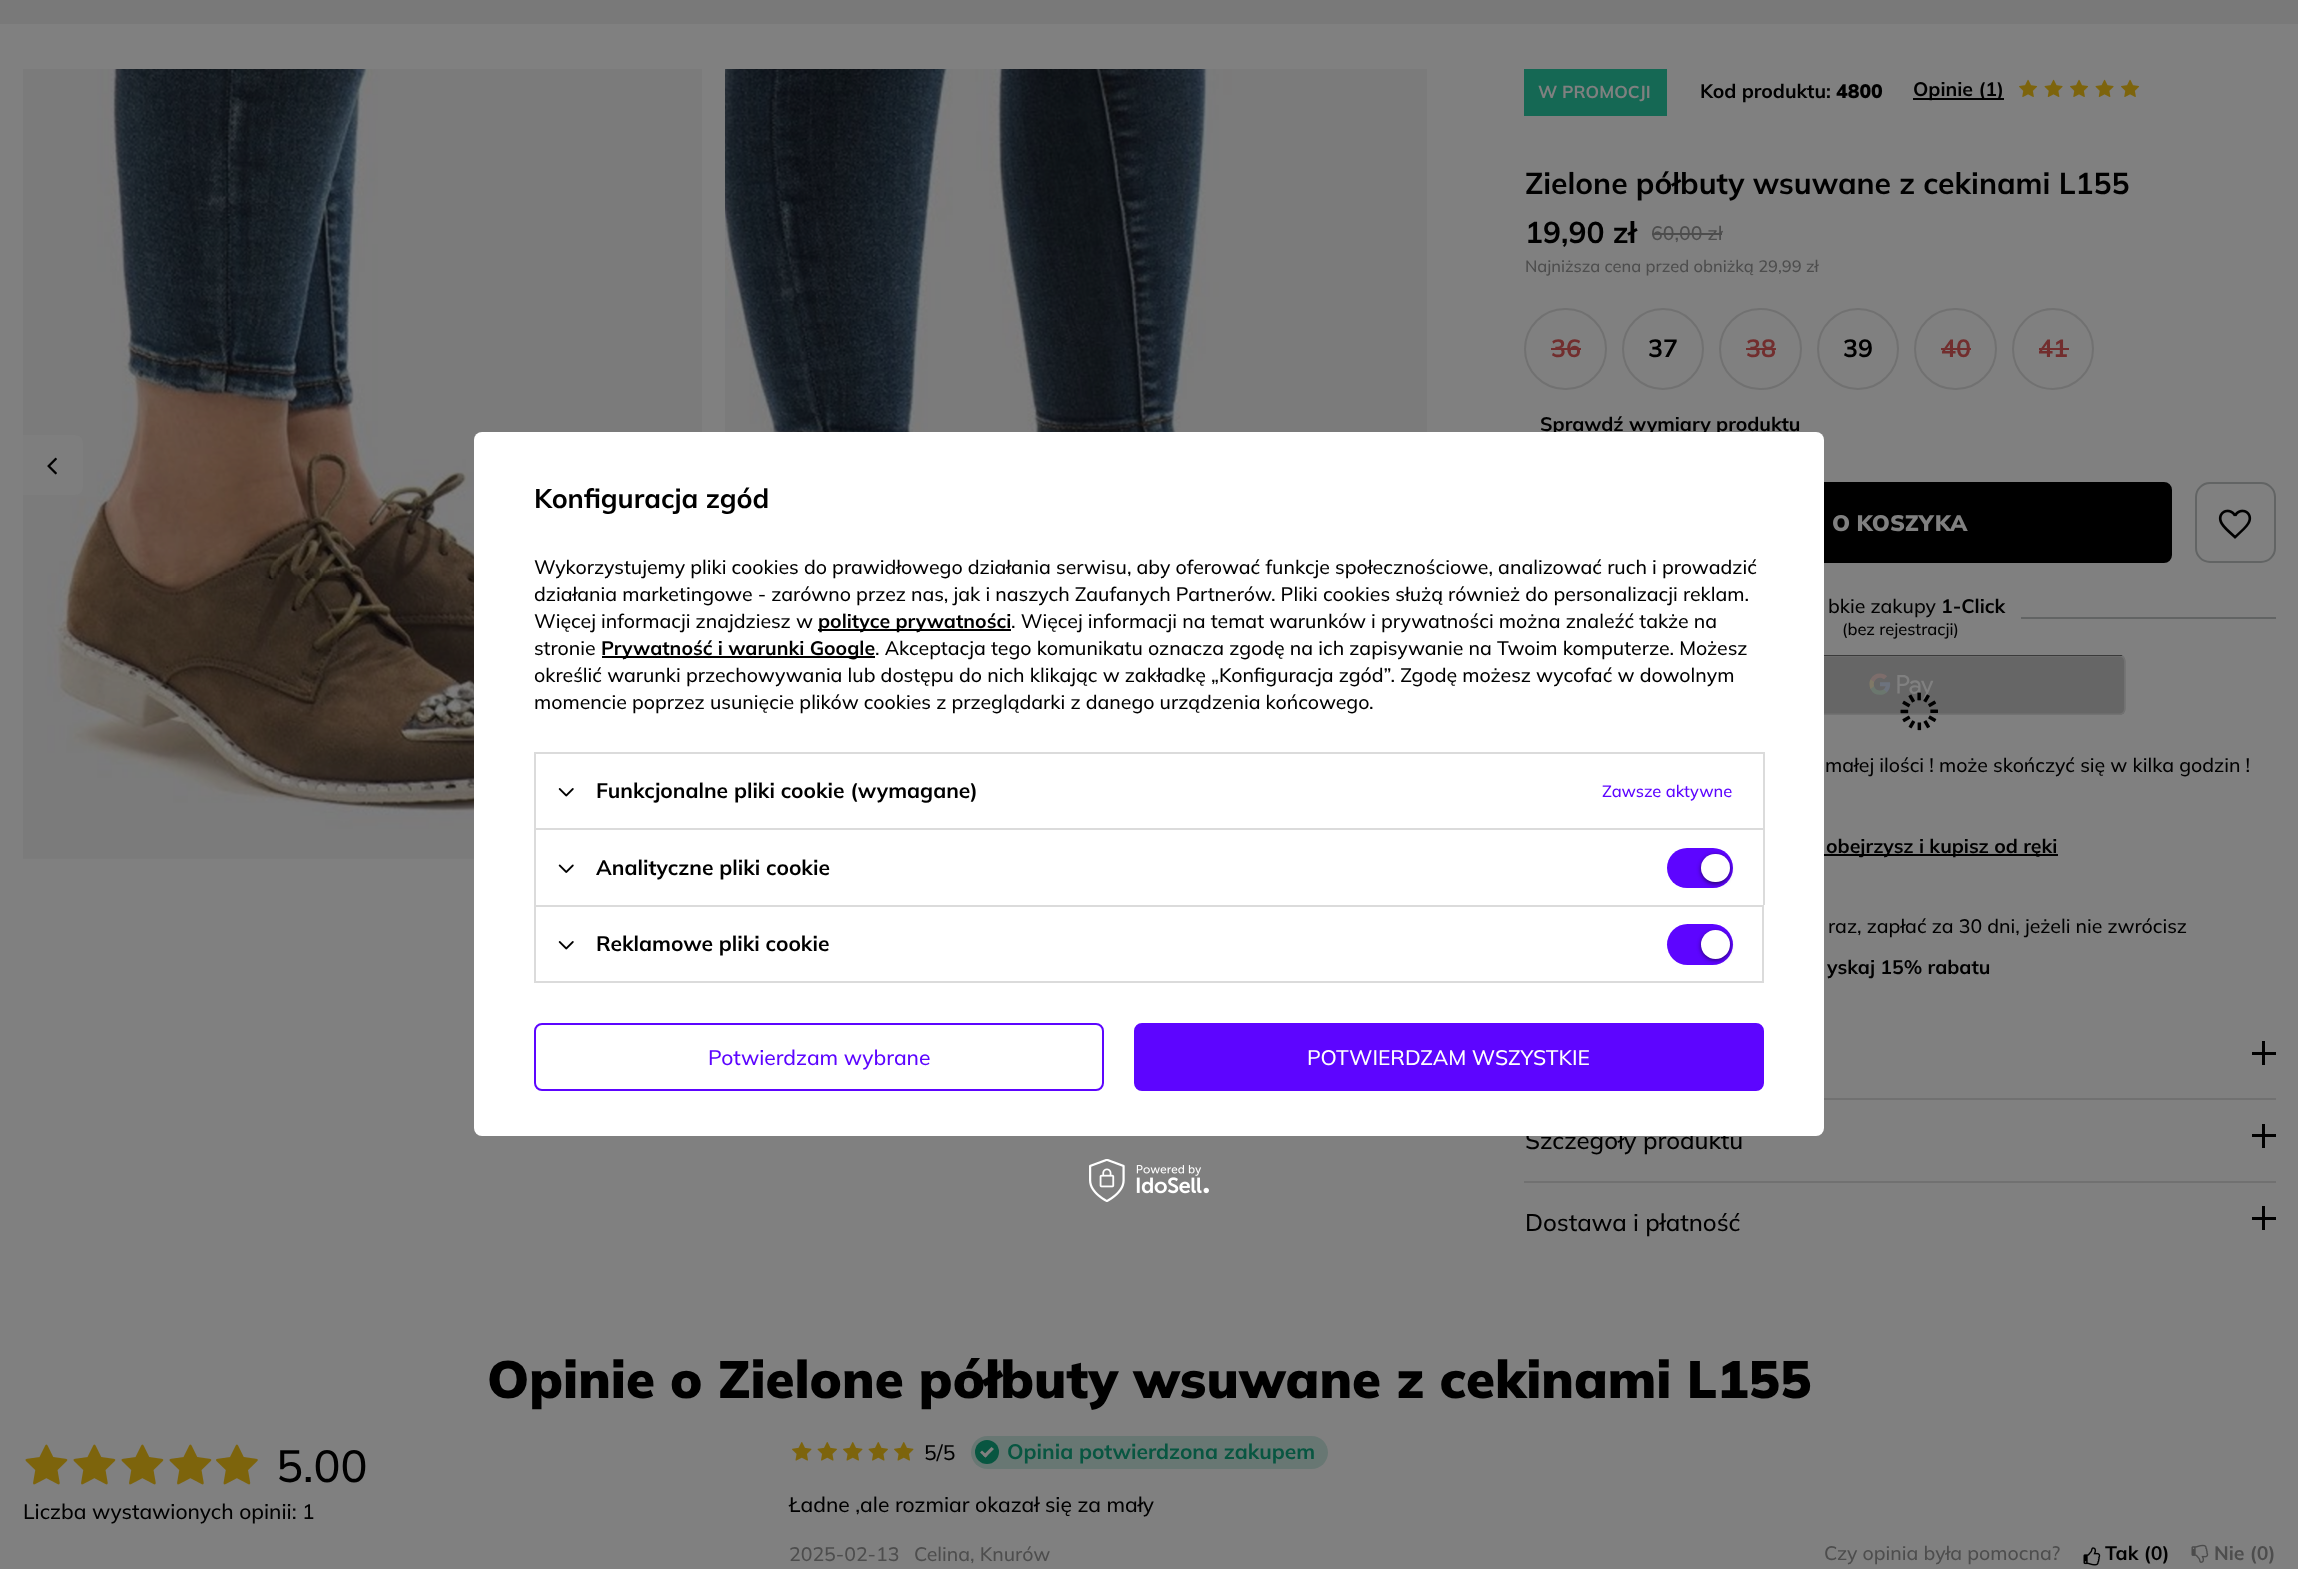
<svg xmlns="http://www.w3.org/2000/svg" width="2298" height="1569">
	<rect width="100%" height="100%" fill="#808080" />
	<rect x="0" y="0" width="2298" height="24" fill="#797979" />
	<image x="23" y="69" width="679" height="790" href="assets/img1.png" />
	<image x="725" y="69" width="702" height="363" href="assets/img2.png" />
	<path d="M23 435H75C79.5 435 83 438.5 83 443V487C83 491.5 79.5 495 75 495H23Z" fill="#7E7E7E" />
	<image x="47" y="457" width="10" height="18" href="assets/img3.png" />
	<rect x="1524" y="69" width="143" height="47" fill="#156854" />
	<text x="1538" y="98" font-family="Mulish" font-size="17.25" font-weight="700" fill="#808080">W PROMOCJI</text>
	<text x="1700" y="98" font-family="Mulish" font-size="19.5" font-weight="700" fill="#000000">Kod produktu:</text>
	<text x="1836" y="98" font-family="Mulish" font-size="19.5" font-weight="900" fill="#000000">4800</text>
	<rect x="1913" y="98" width="91" height="2" fill="#000000" />
	<text x="1913" y="96" font-family="Mulish" font-size="19.5" font-weight="700" fill="#000000">Opinie (1)</text>
	<image x="2019" y="79" width="19" height="18" href="assets/img4.png" />
	<image x="2044" y="79" width="19" height="18" href="assets/img5.png" />
	<image x="2070" y="79" width="19" height="18" href="assets/img4.png" />
	<image x="2095" y="79" width="19" height="18" href="assets/img5.png" />
	<image x="2121" y="79" width="19" height="18" href="assets/img4.png" />
	<g font-family="Mulish" font-size="30" font-weight="700" fill="#000000">
		<text x="1525" y="194">Zielone półbuty wsuwane z cekinami L155</text>
		<text x="1525" y="243">19,90 zł</text>
	</g>
	<text x="1651" y="240" font-family="Mulish" font-size="19.5" font-weight="500" fill="#4D4D4D">60,00 zł</text>
	<rect x="1652" y="233" width="70" height="2" fill="#4D4D4D" />
	<text x="1525" y="272" font-family="Mulish" font-size="16.5" font-weight="500" fill="#4D4D4D">Najniższa cena przed obniżką 29,99 zł</text>
	<rect x="1525" y="309" width="81" height="80" rx="40" fill="none" stroke="#717171" stroke-width="2" />
	<text x="1551" y="357" font-family="Mulish" font-size="25" font-weight="700" fill="#722E2E">36</text>
	<rect x="1551" y="348" width="30" height="2" fill="#722E2E" />
	<circle cx="1663" cy="349" r="40" fill="none" stroke="#717171" stroke-width="2" />
	<text x="1648" y="357" font-family="Mulish" font-size="25" font-weight="700" fill="#000000">37</text>
	<rect x="1720" y="309" width="81" height="80" rx="40" fill="none" stroke="#717171" stroke-width="2" />
	<text x="1746" y="357" font-family="Mulish" font-size="25" font-weight="700" fill="#722E2E">38</text>
	<rect x="1746" y="348" width="30" height="2" fill="#722E2E" />
	<circle cx="1858" cy="349" r="40" fill="none" stroke="#717171" stroke-width="2" />
	<text x="1843" y="357" font-family="Mulish" font-size="25" font-weight="700" fill="#000000">39</text>
	<rect x="1915" y="309" width="81" height="80" rx="40" fill="none" stroke="#717171" stroke-width="2" />
	<text x="1941" y="357" font-family="Mulish" font-size="25" font-weight="700" fill="#722E2E">40</text>
	<rect x="1941" y="348" width="30" height="2" fill="#722E2E" />
	<circle cx="2053" cy="349" r="40" fill="none" stroke="#717171" stroke-width="2" />
	<text x="2038" y="357" font-family="Mulish" font-size="25" font-weight="700" fill="#722E2E">41</text>
	<rect x="2039" y="348" width="30" height="2" fill="#722E2E" />
	<text x="1540" y="431" font-family="Mulish" font-size="19.5" font-weight="700" fill="#000000">Sprawdź wymiary produktu</text>
	<rect x="1525" y="483" width="646" height="79" rx="7" fill="#000000" stroke="#000000" stroke-width="2" />
	<text x="1832" y="531" font-family="Mulish" font-size="22.5" font-weight="900" fill="#808080">O KOSZYKA</text>
	<rect x="2196" y="483" width="79" height="79" rx="14" fill="none" stroke="#626464" stroke-width="2" />
	<image x="2218" y="509" width="34" height="30" href="assets/img6.png" />
	<text x="1828" y="613" font-family="Mulish" font-size="19.5" font-weight="500" fill="#000000">bkie zakupy</text>
	<text x="1941" y="613" font-family="Mulish" font-size="19.5" font-weight="700" fill="#000000">1-Click</text>
	<text x="1842" y="635" font-family="Mulish" font-size="16.5" font-weight="500" fill="#000000">(bez rejestracji)</text>
	<rect x="2021" y="617" width="255" height="2" fill="#626464" />
	<image x="1824" y="655" width="302" height="60" href="assets/img7.png" />
	<image x="1900" y="692" width="38" height="39" href="assets/img8.png" />
	<text x="1825" y="772" font-family="Mulish" font-size="19.5" font-weight="500" fill="#000000">małej ilości ! może skończyć się w kilka godzin !</text>
	<rect x="1824" y="854" width="234" height="2" fill="#000000" />
	<text x="1826" y="853" font-family="Mulish" font-size="19.5" font-weight="700" fill="#000000">obejrzysz i kupisz od ręki</text>
	<text x="1828" y="933" font-family="Mulish" font-size="19.5" font-weight="500" fill="#000000">raz, zapłać za 30 dni, jeżeli nie zwrócisz</text>
	<text x="1827" y="974" font-family="Mulish" font-size="19.5" font-weight="700" fill="#000000">yskaj 15% rabatu</text>
	<rect x="1824" y="1098" width="452" height="2" fill="#717171" />
	<rect x="2252" y="1052" width="24" height="3" fill="#000000" />
	<rect x="2262" y="1041" width="3" height="24" fill="#000000" />
	<rect x="1524" y="1181" width="752" height="2" fill="#717171" />
	<text x="1525" y="1149" font-family="Mulish" font-size="24" font-weight="500" fill="#000000">Szczegóły produktu</text>
	<rect x="2252" y="1134" width="24" height="3" fill="#000000" />
	<rect x="2262" y="1124" width="3" height="24" fill="#000000" />
	<text x="1525" y="1231" font-family="Mulish" font-size="24" font-weight="500" fill="#000000">Dostawa i płatność</text>
	<rect x="2252" y="1217" width="24" height="3" fill="#000000" />
	<rect x="2262" y="1206" width="3" height="24" fill="#000000" />
	<text x="487" y="1398" font-family="Mulish" font-size="52.5" font-weight="900" fill="#000000">Opinie o Zielone półbuty wsuwane z cekinami L155</text>
	<image x="25" y="1444" width="43" height="41" href="assets/img9.png" />
	<image x="73" y="1444" width="43" height="41" href="assets/img9.png" />
	<image x="121" y="1444" width="43" height="41" href="assets/img9.png" />
	<image x="169" y="1444" width="43" height="41" href="assets/img9.png" />
	<image x="216" y="1444" width="42" height="41" href="assets/img10.png" />
	<text x="276" y="1482" font-family="Mulish" font-size="45" font-weight="500" fill="#000000">5.00</text>
	<text x="23" y="1519" font-family="Mulish" font-size="21" font-weight="500" fill="#000000">Liczba wystawionych opinii: 1</text>
	<image x="792" y="1442" width="20" height="19" href="assets/img11.png" />
	<image x="817" y="1442" width="20" height="19" href="assets/img12.png" />
	<image x="843" y="1442" width="20" height="19" href="assets/img11.png" />
	<image x="868" y="1442" width="20" height="19" href="assets/img12.png" />
	<image x="894" y="1442" width="20" height="19" href="assets/img11.png" />
	<text x="924" y="1460" font-family="Mulish" font-size="21" font-weight="500" fill="#000000">5/5</text>
	<rect x="971" y="1436" width="357" height="33" rx="16.5" fill="#687773" />
	<circle cx="987" cy="1452" r="12" fill="#085641" />
	<text x="1007" y="1459" font-family="Mulish" font-size="21" font-weight="700" fill="#085641">Opinia potwierdzona zakupem</text>
	<path d="M991.5 1447L994 1449L985.5 1457.5L983 1455.5Z" fill="#808080" />
	<path d="M982 1450.5L987.5 1455.5L985.5 1457.5L980 1452.5Z" fill="#808080" />
	<text x="789" y="1512" font-family="Mulish" font-size="21" font-weight="500" fill="#000000">Ładne ,ale rozmiar okazał się za mały</text>
	<g font-family="Mulish" font-size="19.5" font-weight="500" fill="#4D4D4D">
		<text x="789" y="1561">2025-02-13</text>
		<text x="914" y="1561">Celina, Knurów</text>
		<text x="1824" y="1560">Czy opinia była pomocna?</text>
	</g>
	<image x="2083" y="1547" width="18" height="19" href="assets/img13.png" />
	<text x="2105" y="1560" font-family="Mulish" font-size="19.5" font-weight="700" fill="#000000">Tak (0)</text>
	<image x="2191" y="1544" width="18" height="19" href="assets/img14.png" />
	<text x="2214" y="1560" font-family="Mulish" font-size="19.5" font-weight="700" fill="#4D4D4D">Nie (0)</text>
	<rect x="474" y="432" width="1350" height="704" rx="8" fill="#FFFFFF" />
	<text x="534" y="508" font-family="Mulish" font-size="27" font-weight="700" fill="#000000">Konfiguracja zgód</text>
	<g font-family="Mulish" font-size="19.5" font-weight="500" fill="#000000">
		<text x="534" y="574">Wykorzystujemy pliki cookies do prawidłowego działania serwisu, aby oferować funkcje społecznościowe, analizować ruch i prowadzić</text>
		<text x="534" y="601">działania marketingowe - zarówno przez nas, jak i naszych Zaufanych Partnerów. Pliki cookies służą również do personalizacji reklam.</text>
		<text x="534" y="628">Więcej informacji znajdziesz w</text>
	</g>
	<rect x="818" y="629" width="193" height="2" fill="#000000" />
	<text x="818" y="628" font-family="Mulish" font-size="19.5" font-weight="700" fill="#000000">polityce prywatności</text>
	<g font-family="Mulish" font-size="19.5" font-weight="500" fill="#000000">
		<text x="1011" y="628">. Więcej informacji na temat warunków i prywatności można znaleźć także na</text>
		<text x="534" y="655">stronie</text>
	</g>
	<rect x="602" y="656" width="273" height="2" fill="#000000" />
	<text x="601" y="655" font-family="Mulish" font-size="19.5" font-weight="700" fill="#000000">Prywatność i warunki Google</text>
	<g font-family="Mulish" font-size="19.5" font-weight="500" fill="#000000">
		<text x="875" y="655">. Akceptacja tego komunikatu oznacza zgodę na ich zapisywanie na Twoim komputerze. Możesz</text>
		<text x="534" y="682">określić warunki przechowywania lub dostępu do nich klikając w zakładkę „Konfiguracja zgód”. Zgodę możesz wycofać w dowolnym</text>
		<text x="534" y="709">momencie poprzez usunięcie plików cookies z przeglądarki z danego urządzenia końcowego.</text>
	</g>
	<rect x="534" y="752" width="1230" height="2" fill="#DBDBDB" />
	<rect x="1763" y="752" width="2" height="76" fill="#DBDBDB" />
	<rect x="534" y="752" width="2" height="76" fill="#DBDBDB" />
	<image x="558" y="788" width="16" height="9" href="assets/img15.png" />
	<text x="596" y="798" font-family="Mulish" font-size="21" font-weight="700" fill="#000000">Funkcjonalne pliki cookie (wymagane)</text>
	<text x="1602" y="797" font-family="Mulish" font-size="16.5" font-weight="500" fill="#5D05FF">Zawsze aktywne</text>
	<rect x="534" y="828" width="1230" height="2" fill="#DBDBDB" />
	<rect x="1763" y="828" width="2" height="77" fill="#DBDBDB" />
	<rect x="534" y="828" width="2" height="77" fill="#DBDBDB" />
	<image x="558" y="864" width="16" height="9" href="assets/img16.png" />
	<text x="596" y="875" font-family="Mulish" font-size="21" font-weight="700" fill="#000000">Analityczne pliki cookie</text>
	<rect x="1667" y="848" width="66" height="40" rx="20" fill="#5D05FF" />
	<rect x="1701" y="855" width="29" height="29" rx="14.5" fill="#000000" fill-opacity="0.56" filter="blur(2px)" />
	<rect x="1701" y="854" width="29" height="28" rx="14" fill="#FFFFFF" />
	<rect x="535" y="906" width="1228" height="76" fill="none" stroke="#DBDBDB" stroke-width="2" />
	<image x="558" y="941" width="16" height="9" href="assets/img15.png" />
	<text x="596" y="951" font-family="Mulish" font-size="21" font-weight="700" fill="#000000">Reklamowe pliki cookie</text>
	<rect x="1667" y="924" width="66" height="41" rx="20.5" fill="#5D05FF" />
	<rect x="1701" y="932" width="29" height="28" rx="14" fill="#000000" fill-opacity="0.56" filter="blur(2px)" />
	<circle cx="1715.5" cy="944.5" r="14.5" fill="#FFFFFF" />
	<rect x="535" y="1024" width="568" height="66" rx="7" fill="none" stroke="#5D05FF" stroke-width="2" />
	<text x="708" y="1065" font-family="Mulish" font-size="21" font-weight="500" fill="#5D05FF">Potwierdzam wybrane</text>
	<rect x="1135" y="1024" width="628" height="66" rx="7" fill="#5D05FF" stroke="#5D05FF" stroke-width="2" />
	<text x="1307" y="1065" font-family="Mulish" font-size="21" font-weight="500" fill="#FFFFFF">POTWIERDZAM WSZYSTKIE</text>
	<image x="1089" y="1159" width="120" height="43" href="assets/img17.png" />
</svg>
